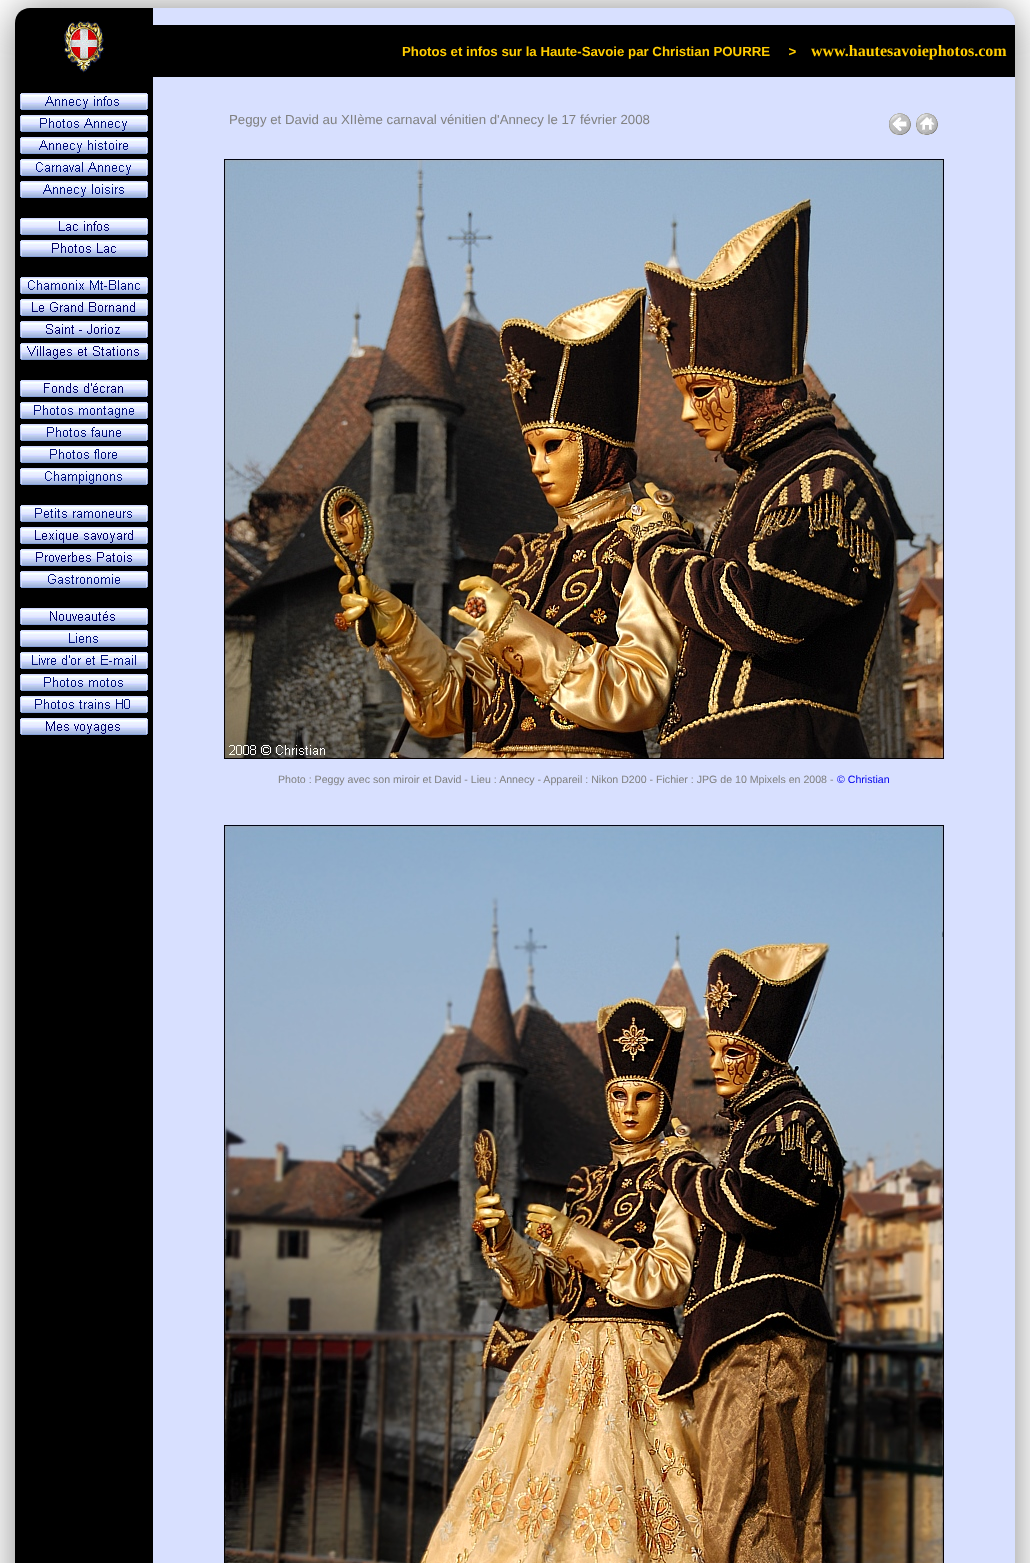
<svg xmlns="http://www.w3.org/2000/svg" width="1030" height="1563">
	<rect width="100%" height="100%" fill="#FFFFFF" />
	<rect x="15" y="9" width="1000" height="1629" rx="15" fill="#888888" filter="blur(20px)" />
	<path d="M30 8H153V77H15V23C15 14.5 21.5 8 30 8Z" fill="#000000" />
	<image x="64" y="21" width="41" height="52" href="assets/img1.png" />
	<path d="M153 8H1000C1008.5 8 1015 14.5 1015 23V25H153Z" fill="#D8E0FF" />
	<rect x="153" y="25" width="862" height="52" fill="#000000" />
	<text x="402" y="56" font-family="Liberation Sans" font-size="13.25" font-weight="700" fill="#FFCC00" xml:space="preserve">Photos et infos sur la Haute-Savoie par Christian POURRE     &gt;</text>
	<text x="811" y="56" font-family="Liberation Serif" font-size="16" font-weight="700" fill="#FFCC00">www.hautesavoiephotos.com</text>
	<rect x="15" y="77" width="138" height="1486" fill="#000000" />
	<image x="20" y="93" width="128" height="17" href="assets/img2.png" />
	<image x="20" y="115" width="128" height="17" href="assets/img3.png" />
	<image x="20" y="137" width="128" height="17" href="assets/img4.png" />
	<image x="20" y="159" width="128" height="17" href="assets/img5.png" />
	<image x="20" y="181" width="128" height="17" href="assets/img6.png" />
	<image x="20" y="218" width="128" height="17" href="assets/img7.png" />
	<image x="20" y="240" width="128" height="17" href="assets/img8.png" />
	<image x="20" y="277" width="128" height="17" href="assets/img9.png" />
	<image x="20" y="299" width="128" height="17" href="assets/img10.png" />
	<image x="20" y="321" width="128" height="17" href="assets/img11.png" />
	<image x="20" y="343" width="128" height="17" href="assets/img12.png" />
	<image x="20" y="380" width="128" height="17" href="assets/img13.png" />
	<image x="20" y="402" width="128" height="17" href="assets/img14.png" />
	<image x="20" y="424" width="128" height="17" href="assets/img15.png" />
	<image x="20" y="446" width="128" height="17" href="assets/img16.png" />
	<image x="20" y="468" width="128" height="17" href="assets/img17.png" />
	<image x="20" y="505" width="128" height="17" href="assets/img18.png" />
	<image x="20" y="527" width="128" height="17" href="assets/img19.png" />
	<image x="20" y="549" width="128" height="17" href="assets/img20.png" />
	<image x="20" y="571" width="128" height="17" href="assets/img21.png" />
	<image x="20" y="608" width="128" height="17" href="assets/img22.png" />
	<image x="20" y="630" width="128" height="17" href="assets/img23.png" />
	<image x="20" y="652" width="128" height="17" href="assets/img24.png" />
	<image x="20" y="674" width="128" height="17" href="assets/img25.png" />
	<image x="20" y="696" width="128" height="17" href="assets/img26.png" />
	<image x="20" y="718" width="128" height="17" href="assets/img27.png" />
	<rect x="153" y="77" width="862" height="1486" fill="#D8E0FF" />
	<text x="229" y="124" font-family="Liberation Sans" font-size="13.25" fill="#808080">Peggy et David au XIIème carnaval vénitien d'Annecy le 17 février 2008</text>
	<image x="889" y="113" width="22" height="22" href="assets/img28.png" />
	<image x="916" y="113" width="22" height="22" href="assets/img29.png" />
	<image x="224" y="159" width="720" height="600" href="assets/img30.png" />
	<text x="278" y="783" font-family="Liberation Sans" font-size="10.62" fill="#808080">Photo : Peggy avec son miroir et David - Lieu : Annecy - Appareil : Nikon D200 - Fichier : JPG de 10 Mpixels en 2008 -</text>
	<text x="837" y="783" font-family="Liberation Sans" font-size="10.62" fill="#0000EE">© Christian</text>
	<image x="224" y="825" width="720" height="738" href="assets/img31.png" />
</svg>
